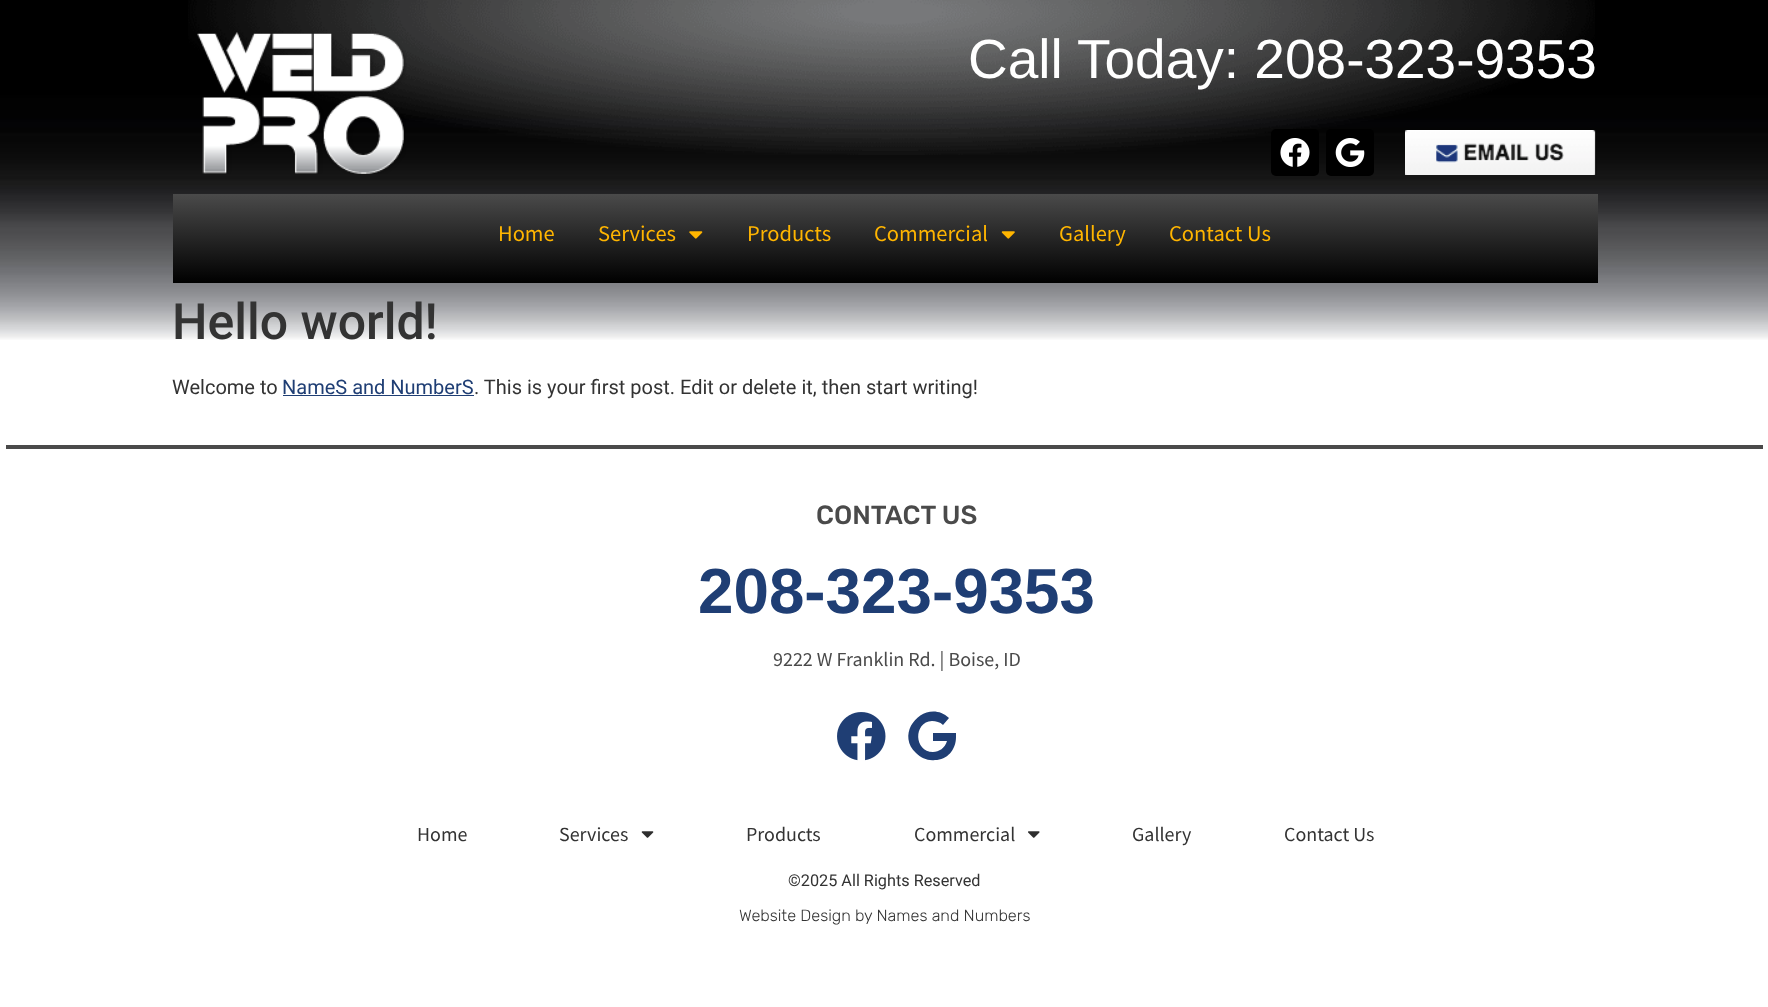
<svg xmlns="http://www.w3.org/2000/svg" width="1768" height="1007">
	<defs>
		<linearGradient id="g1" gradientUnits="userSpaceOnUse" x1="885" y1="283" x2="885" y2="194"><stop offset="0" stop-color="#000000" /><stop offset="1" stop-color="#4A4A4A" /></linearGradient>
	</defs>
	<rect width="100%" height="100%" fill="#FFFFFF" />
	<image x="0" y="0" width="1768" height="340" href="assets/img1.png" />
	<image x="188" y="0" width="1407" height="155" href="assets/img2.png" />
	<image x="197" y="32" width="209" height="142" href="assets/img3.png" />
	<text x="968" y="78" font-family="Liberation Sans" font-size="55" fill="#FFFFFF">Call Today: 208-323-9353</text>
	<rect x="1271" y="129" width="48" height="47" rx="5" fill="#000000" />
	<image x="1280" y="138" width="30" height="29" href="assets/img4.png" />
	<rect x="1326" y="129" width="48" height="47" rx="5" fill="#000000" />
	<image x="1335" y="138" width="30" height="29" href="assets/img5.png" />
	<image x="1405" y="130" width="192" height="45" href="assets/img6.png" />
	<rect x="173" y="194" width="1425" height="89" fill="url(#g1)" />
	<g font-family="Source Sans Pro" font-size="22.5" fill="#FFB500">
		<text x="498" y="241">Home</text>
		<text x="598" y="241">Services</text>
	</g>
	<image x="689" y="231" width="14" height="8" href="assets/img7.png" />
	<g font-family="Source Sans Pro" font-size="22.5" fill="#FFB500">
		<text x="747" y="241">Products</text>
		<text x="874" y="241">Commercial</text>
	</g>
	<image x="1001" y="231" width="14" height="8" href="assets/img8.png" />
	<g font-family="Source Sans Pro" font-size="22.5" fill="#FFB500">
		<text x="1059" y="241">Gallery</text>
		<text x="1169" y="241">Contact Us</text>
	</g>
	<text x="172" y="339" font-family="Roboto" font-size="50" font-weight="500" fill="#333333">Hello world!</text>
	<text x="172" y="394" font-family="Roboto" font-size="20" fill="#333333">Welcome to</text>
	<text x="282" y="394" font-family="Roboto" font-size="20" fill="#1F3E74">NameS and NumberS</text>
	<rect x="283" y="395" width="191" height="1" fill="#1F3E74" />
	<text x="474" y="394" font-family="Roboto" font-size="20" fill="#333333">. This is your first post. Edit or delete it, then start writing!</text>
	<rect x="6" y="445" width="1757" height="4" fill="#4A4A4A" />
	<text x="816" y="524" font-family="Rubik" font-size="26.25" font-weight="500" fill="#4A4A4A">CONTACT US</text>
	<text x="698" y="613" font-family="Liberation Sans" font-size="63.75" font-weight="700" fill="#1F3E74">208-323-9353</text>
	<text x="773" y="666" font-family="Source Sans Pro" font-size="20" fill="#4A4A4A">9222 W Franklin Rd. | Boise, ID</text>
	<image x="837" y="712" width="49" height="49" href="assets/img9.png" />
	<path d="M956 737C956 750 947 760 935 760C928 761 921 758 916 753C893 731 927 697 949 718L943 725C940 722 936 721 932 721C913 722 914 752 933 752C939 752 945 748 947 741H933V733H956Z" fill="#1F3E74" />
	<g font-family="Source Sans Pro" font-size="20" fill="#333333">
		<text x="417" y="841">Home</text>
		<text x="559" y="841">Services</text>
	</g>
	<image x="641" y="831" width="13" height="7" href="assets/img10.png" />
	<g font-family="Source Sans Pro" font-size="20" fill="#333333">
		<text x="746" y="841">Products</text>
		<text x="914" y="841">Commercial</text>
	</g>
	<image x="1028" y="831" width="12" height="7" href="assets/img11.png" />
	<g font-family="Source Sans Pro" font-size="20" fill="#333333">
		<text x="1132" y="841">Gallery</text>
		<text x="1284" y="841">Contact Us</text>
	</g>
	<text x="788" y="886" font-family="Roboto" font-size="16.25" fill="#333333">©2025 All Rights Reserved</text>
	<text x="739" y="921" font-family="Rubik" font-size="16.25" font-weight="300" fill="#333333">Website Design by Names and Numbers</text>
</svg>
